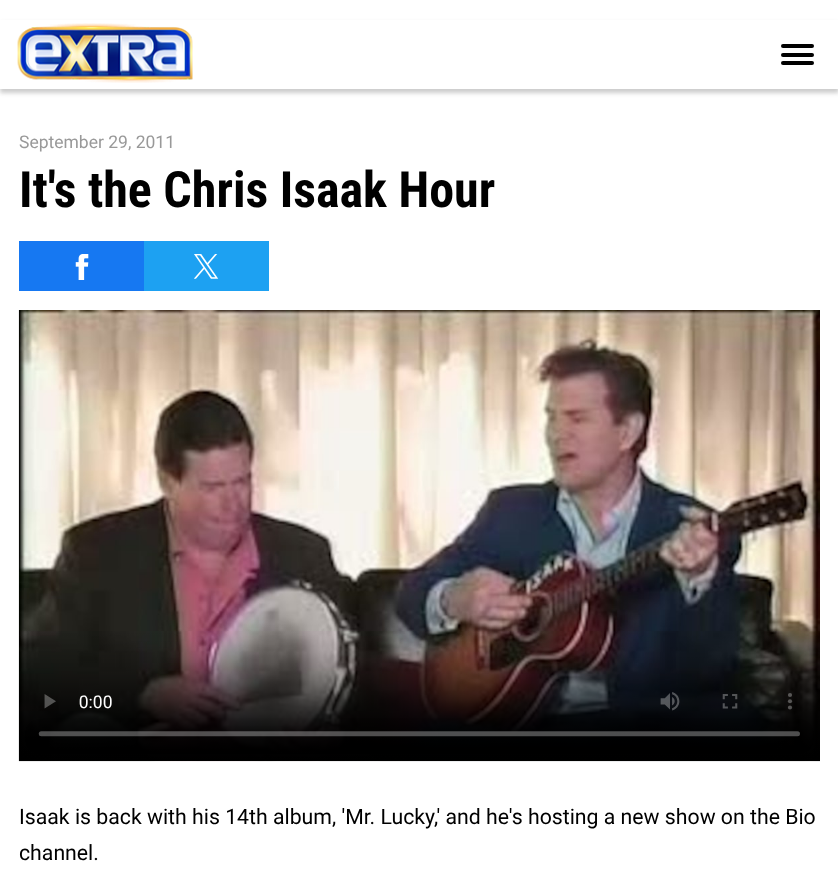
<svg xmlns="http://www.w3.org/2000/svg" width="838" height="873">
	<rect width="100%" height="100%" fill="#FFFFFF" />
	<rect x="0" y="23" width="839" height="70" fill="#000000" fill-opacity="0.2" filter="blur(2px)" />
	<rect x="0" y="20" width="838" height="69" fill="#FFFFFF" />
	<image x="17" y="23" width="176" height="60" href="assets/img1.png" />
	<rect x="781" y="44" width="33" height="4" rx="2" fill="#000000" />
	<rect x="781" y="53" width="33" height="4" rx="2" fill="#000000" />
	<rect x="781" y="61" width="33" height="4" rx="2" fill="#000000" />
	<text x="19" y="148" font-family="Roboto" font-size="17.5" fill="#999999">September 29, 2011</text>
	<text x="19" y="207" font-family="Roboto Condensed" font-size="50" font-weight="700" fill="#000000">It's the Chris Isaak Hour</text>
	<rect x="19" y="241" width="125" height="50" fill="#1678F2" />
	<image x="75" y="254" width="14" height="26" href="assets/img2.png" />
	<rect x="144" y="241" width="125" height="50" fill="#1DA1F2" />
	<image x="194" y="254" width="25" height="25" href="assets/img3.png" />
	<image x="18" y="310" width="802" height="452" href="assets/img4.png" />
	<g font-family="Roboto" font-size="21.25" fill="#000000">
		<text x="19" y="824">Isaak is back with his 14th album, 'Mr. Lucky,' and he's hosting a new show on the Bio</text>
		<text x="19" y="860">channel.</text>
	</g>
</svg>
